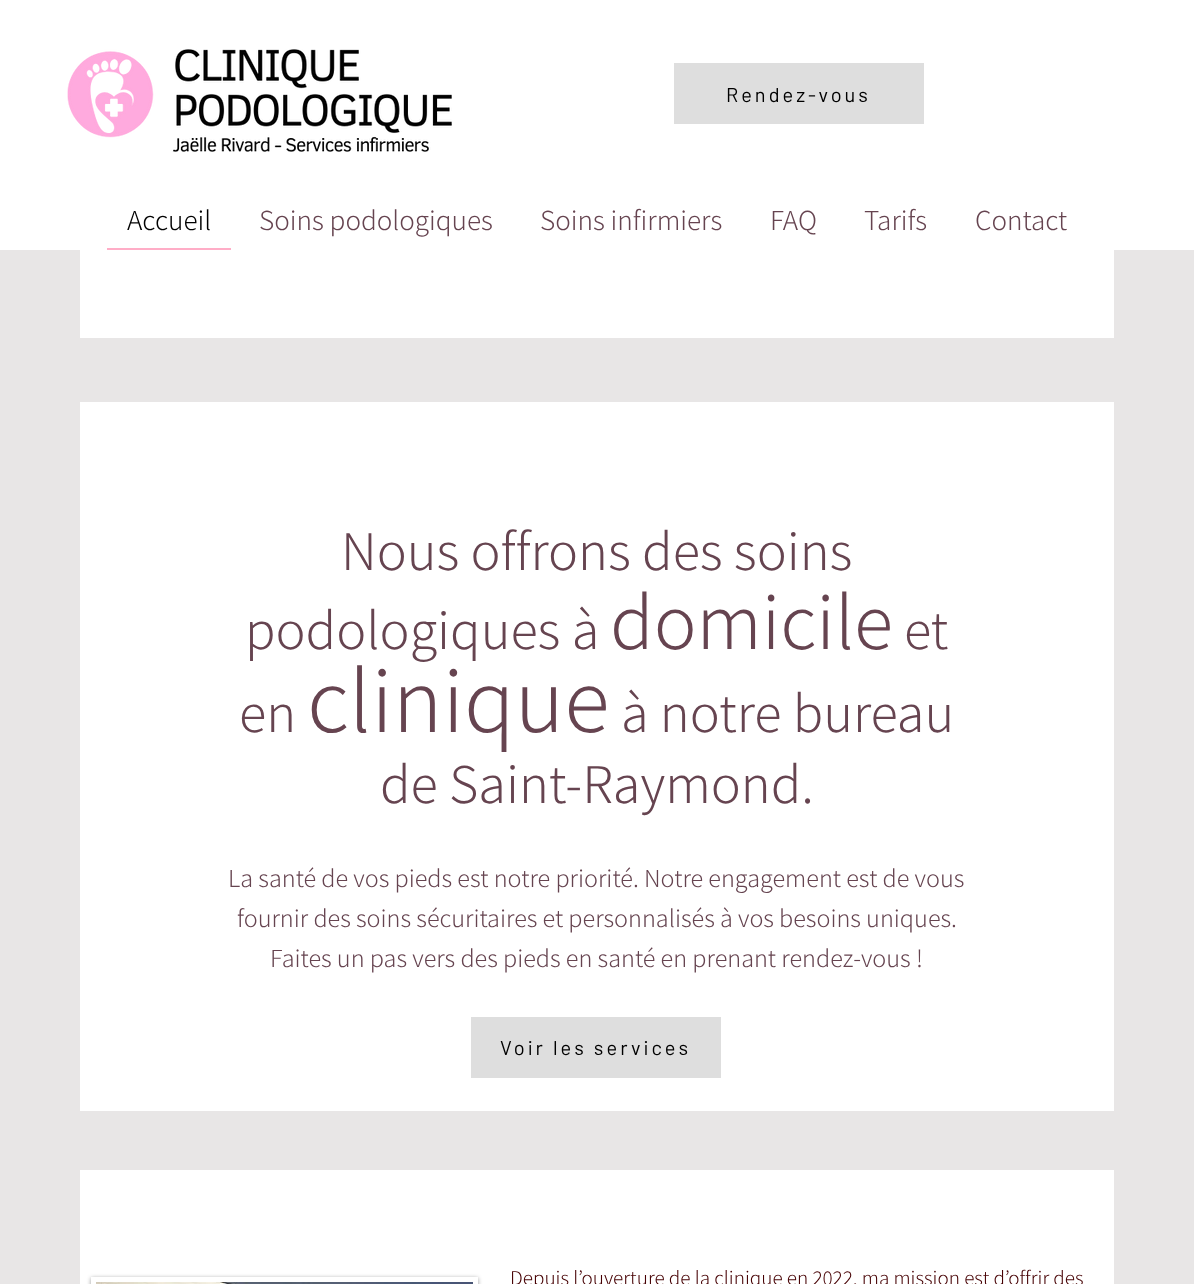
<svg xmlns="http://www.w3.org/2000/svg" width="1194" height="1284">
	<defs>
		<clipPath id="clip1"><path d="M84 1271H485V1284H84ZM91 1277H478V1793H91Z" clip-rule="evenodd" /></clipPath>
	</defs>
	<rect width="100%" height="100%" fill="#E8E6E6" />
	<rect x="0" y="0" width="1194" height="250" fill="#FFFFFF" />
	<image x="67" y="49" width="385" height="103" href="assets/img1.png" />
	<rect x="674" y="63" width="250" height="61" fill="#DEDEDE" />
	<text x="726" y="102" font-family="Barlow" font-size="20" letter-spacing="3" fill="#000000">Rendez-vous</text>
	<rect x="107" y="248" width="124" height="2" fill="#FFADC7" />
	<text x="127" y="230" font-family="Assistant" font-size="29" font-weight="300" fill="#000000">Accueil</text>
	<g font-family="Assistant" font-size="29" font-weight="300" fill="#664450">
		<text x="259" y="230">Soins podologiques</text>
		<text x="540" y="230">Soins infirmiers</text>
		<text x="770" y="230">FAQ</text>
		<text x="864" y="230">Tarifs</text>
		<text x="975" y="230">Contact</text>
	</g>
	<rect x="80" y="250" width="1034" height="88" fill="#FFFFFF" />
	<rect x="80" y="402" width="1034" height="709" fill="#FFFFFF" />
	<g font-family="Assistant" font-size="56" font-weight="300" fill="#664450">
		<text x="341" y="570">Nous offrons des soins</text>
		<text x="245" y="649">podologiques à</text>
	</g>
	<text x="610" y="649" font-family="Assistant" font-size="80" font-weight="300" fill="#664450">domicile</text>
	<g font-family="Assistant" font-size="56" font-weight="300" fill="#664450">
		<text x="904" y="649">et</text>
		<text x="239" y="732">en</text>
	</g>
	<text x="307" y="732" font-family="Assistant" font-size="93" font-weight="300" fill="#664450">clinique</text>
	<g font-family="Assistant" font-size="56" font-weight="300" fill="#664450">
		<text x="621" y="732">à notre bureau</text>
		<text x="380" y="803">de Saint-Raymond.</text>
	</g>
	<g font-family="Assistant" font-size="26" font-weight="300" fill="#664450">
		<text x="228" y="887">La santé de vos pieds est notre priorité. Notre engagement est de vous</text>
		<text x="237" y="927">fournir des soins sécuritaires et personnalisés à vos besoins uniques.</text>
		<text x="270" y="967">Faites un pas vers des pieds en santé en prenant rendez-vous !</text>
	</g>
	<rect x="471" y="1017" width="250" height="61" fill="#DEDEDE" />
	<text x="500" y="1055" font-family="Barlow" font-size="20" letter-spacing="3" fill="#000000">Voir les services</text>
	<rect x="80" y="1170" width="1034" height="114" fill="#FFFFFF" />
	<g clip-path="url(#clip1)">
		<rect x="91" y="1278" width="387" height="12" fill="#000000" fill-opacity="0.4" filter="blur(2px)" />
	</g>
	<image x="96" y="1282" width="377" height="2" href="assets/img2.png" />
	<text x="510" y="1285" font-family="Assistant" font-size="21" font-weight="300" fill="#460003">Depuis l’ouverture de la clinique en 2022, ma mission est d’offrir des</text>
</svg>
